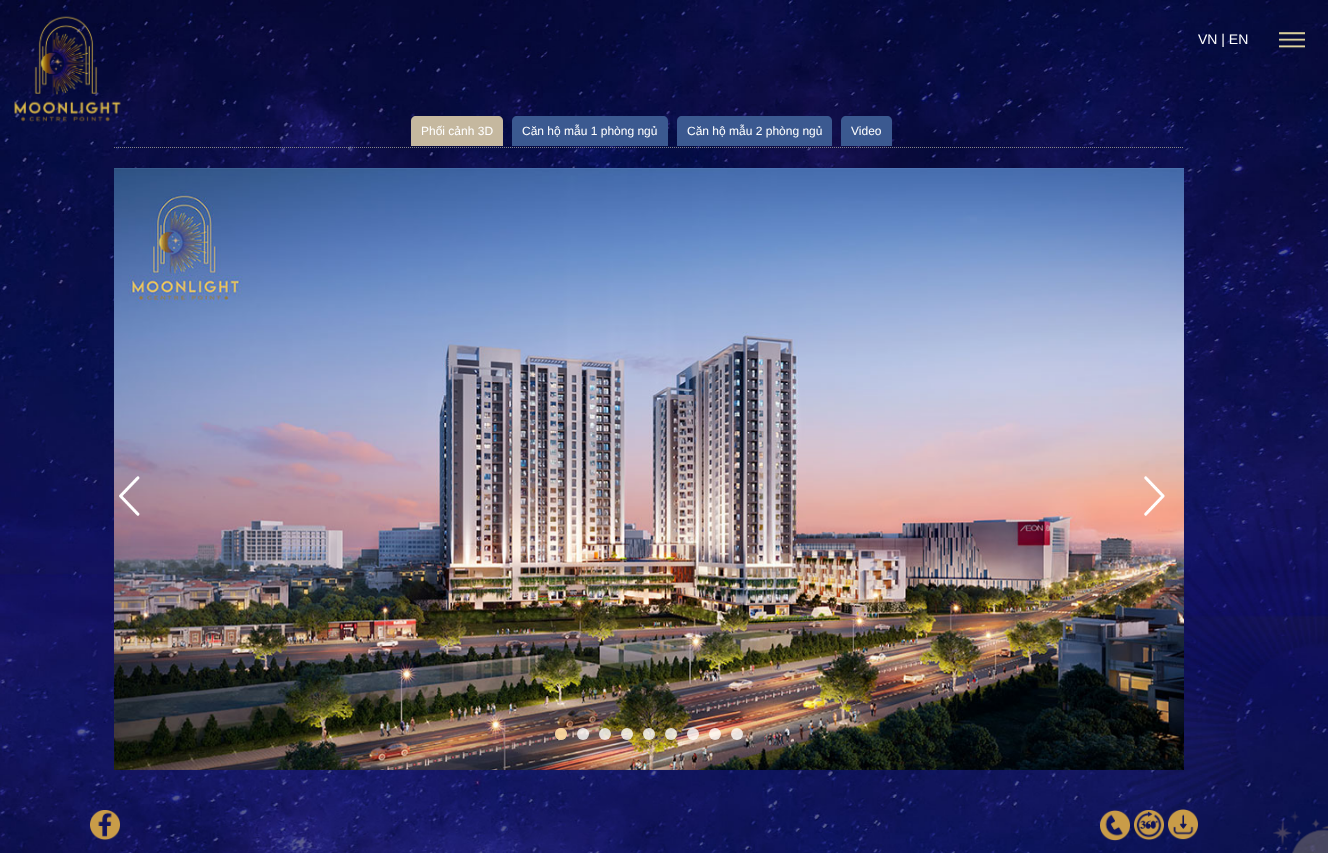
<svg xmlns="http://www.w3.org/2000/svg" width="1328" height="853">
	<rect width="100%" height="100%" fill="#FFFFFF" />
	<image x="0" y="0" width="1328" height="853" href="assets/img1.png" />
	<image x="14" y="16" width="107" height="106" href="assets/img2.png" />
	<image x="90" y="810" width="30" height="31" href="assets/img3.png" />
	<image x="1100" y="810" width="30" height="31" href="assets/img4.png" />
	<image x="1134" y="810" width="30" height="31" href="assets/img5.png" />
	<image x="1168" y="809" width="30" height="31" href="assets/img6.png" />
	<text x="1198" y="44" font-family="Liberation Sans" font-size="14" fill="#FFFFFF">VN | EN</text>
	<image x="1278" y="32" width="27" height="17" href="assets/img7.png" />
	<path d="M114 147.5H1184" fill="none" stroke="#858585" stroke-dasharray="1 1" />
	<path d="M416 116H498C501 116 503 118 503 121V146H411V121C411 118 413 116 416 116Z" fill="#C5B89F" />
	<text x="421" y="135" font-family="Liberation Sans" font-size="12" fill="#FFFFFF">Phối cảnh 3D</text>
	<path d="M517 116H663C666 116 668 118 668 121V146H512V121C512 118 514 116 517 116Z" fill="#3B5990" />
	<text x="522" y="135" font-family="Liberation Sans" font-size="12" fill="#FFFFFF">Căn hộ mẫu 1 phòng ngủ</text>
	<path d="M682 116H827C830 116 832 118 832 121V146H677V121C677 118 679 116 682 116Z" fill="#3B5990" />
	<text x="687" y="135" font-family="Liberation Sans" font-size="12" fill="#FFFFFF">Căn hộ mẫu 2 phòng ngủ</text>
	<path d="M846 116H887C890 116 892 118 892 121V146H841V121C841 118 843 116 846 116Z" fill="#3B5990" />
	<text x="851" y="135" font-family="Liberation Sans" font-size="12" fill="#FFFFFF">Video</text>
	<image x="114" y="168" width="1070" height="602" href="assets/img8.png" />
	<image x="119" y="476" width="21" height="40" href="assets/img9.png" />
	<image x="1144" y="476" width="21" height="40" href="assets/img10.png" />
	<circle cx="561" cy="734" r="6" fill="#FFFFFF" fill-opacity="0.8" />
	<circle cx="561" cy="734" r="6" fill="#FDCA74" fill-opacity="0.64" />
	<circle cx="583" cy="734" r="6" fill="#FFFFFF" fill-opacity="0.8" />
	<circle cx="605" cy="734" r="6" fill="#FFFFFF" fill-opacity="0.8" />
	<circle cx="627" cy="734" r="6" fill="#FFFFFF" fill-opacity="0.8" />
	<circle cx="649" cy="734" r="6" fill="#FFFFFF" fill-opacity="0.8" />
	<circle cx="671" cy="734" r="6" fill="#FFFFFF" fill-opacity="0.8" />
	<circle cx="693" cy="734" r="6" fill="#FFFFFF" fill-opacity="0.8" />
	<circle cx="715" cy="734" r="6" fill="#FFFFFF" fill-opacity="0.8" />
	<circle cx="737" cy="734" r="6" fill="#FFFFFF" fill-opacity="0.8" />
	<image x="1273" y="811" width="55" height="42" href="assets/img11.png" />
</svg>
